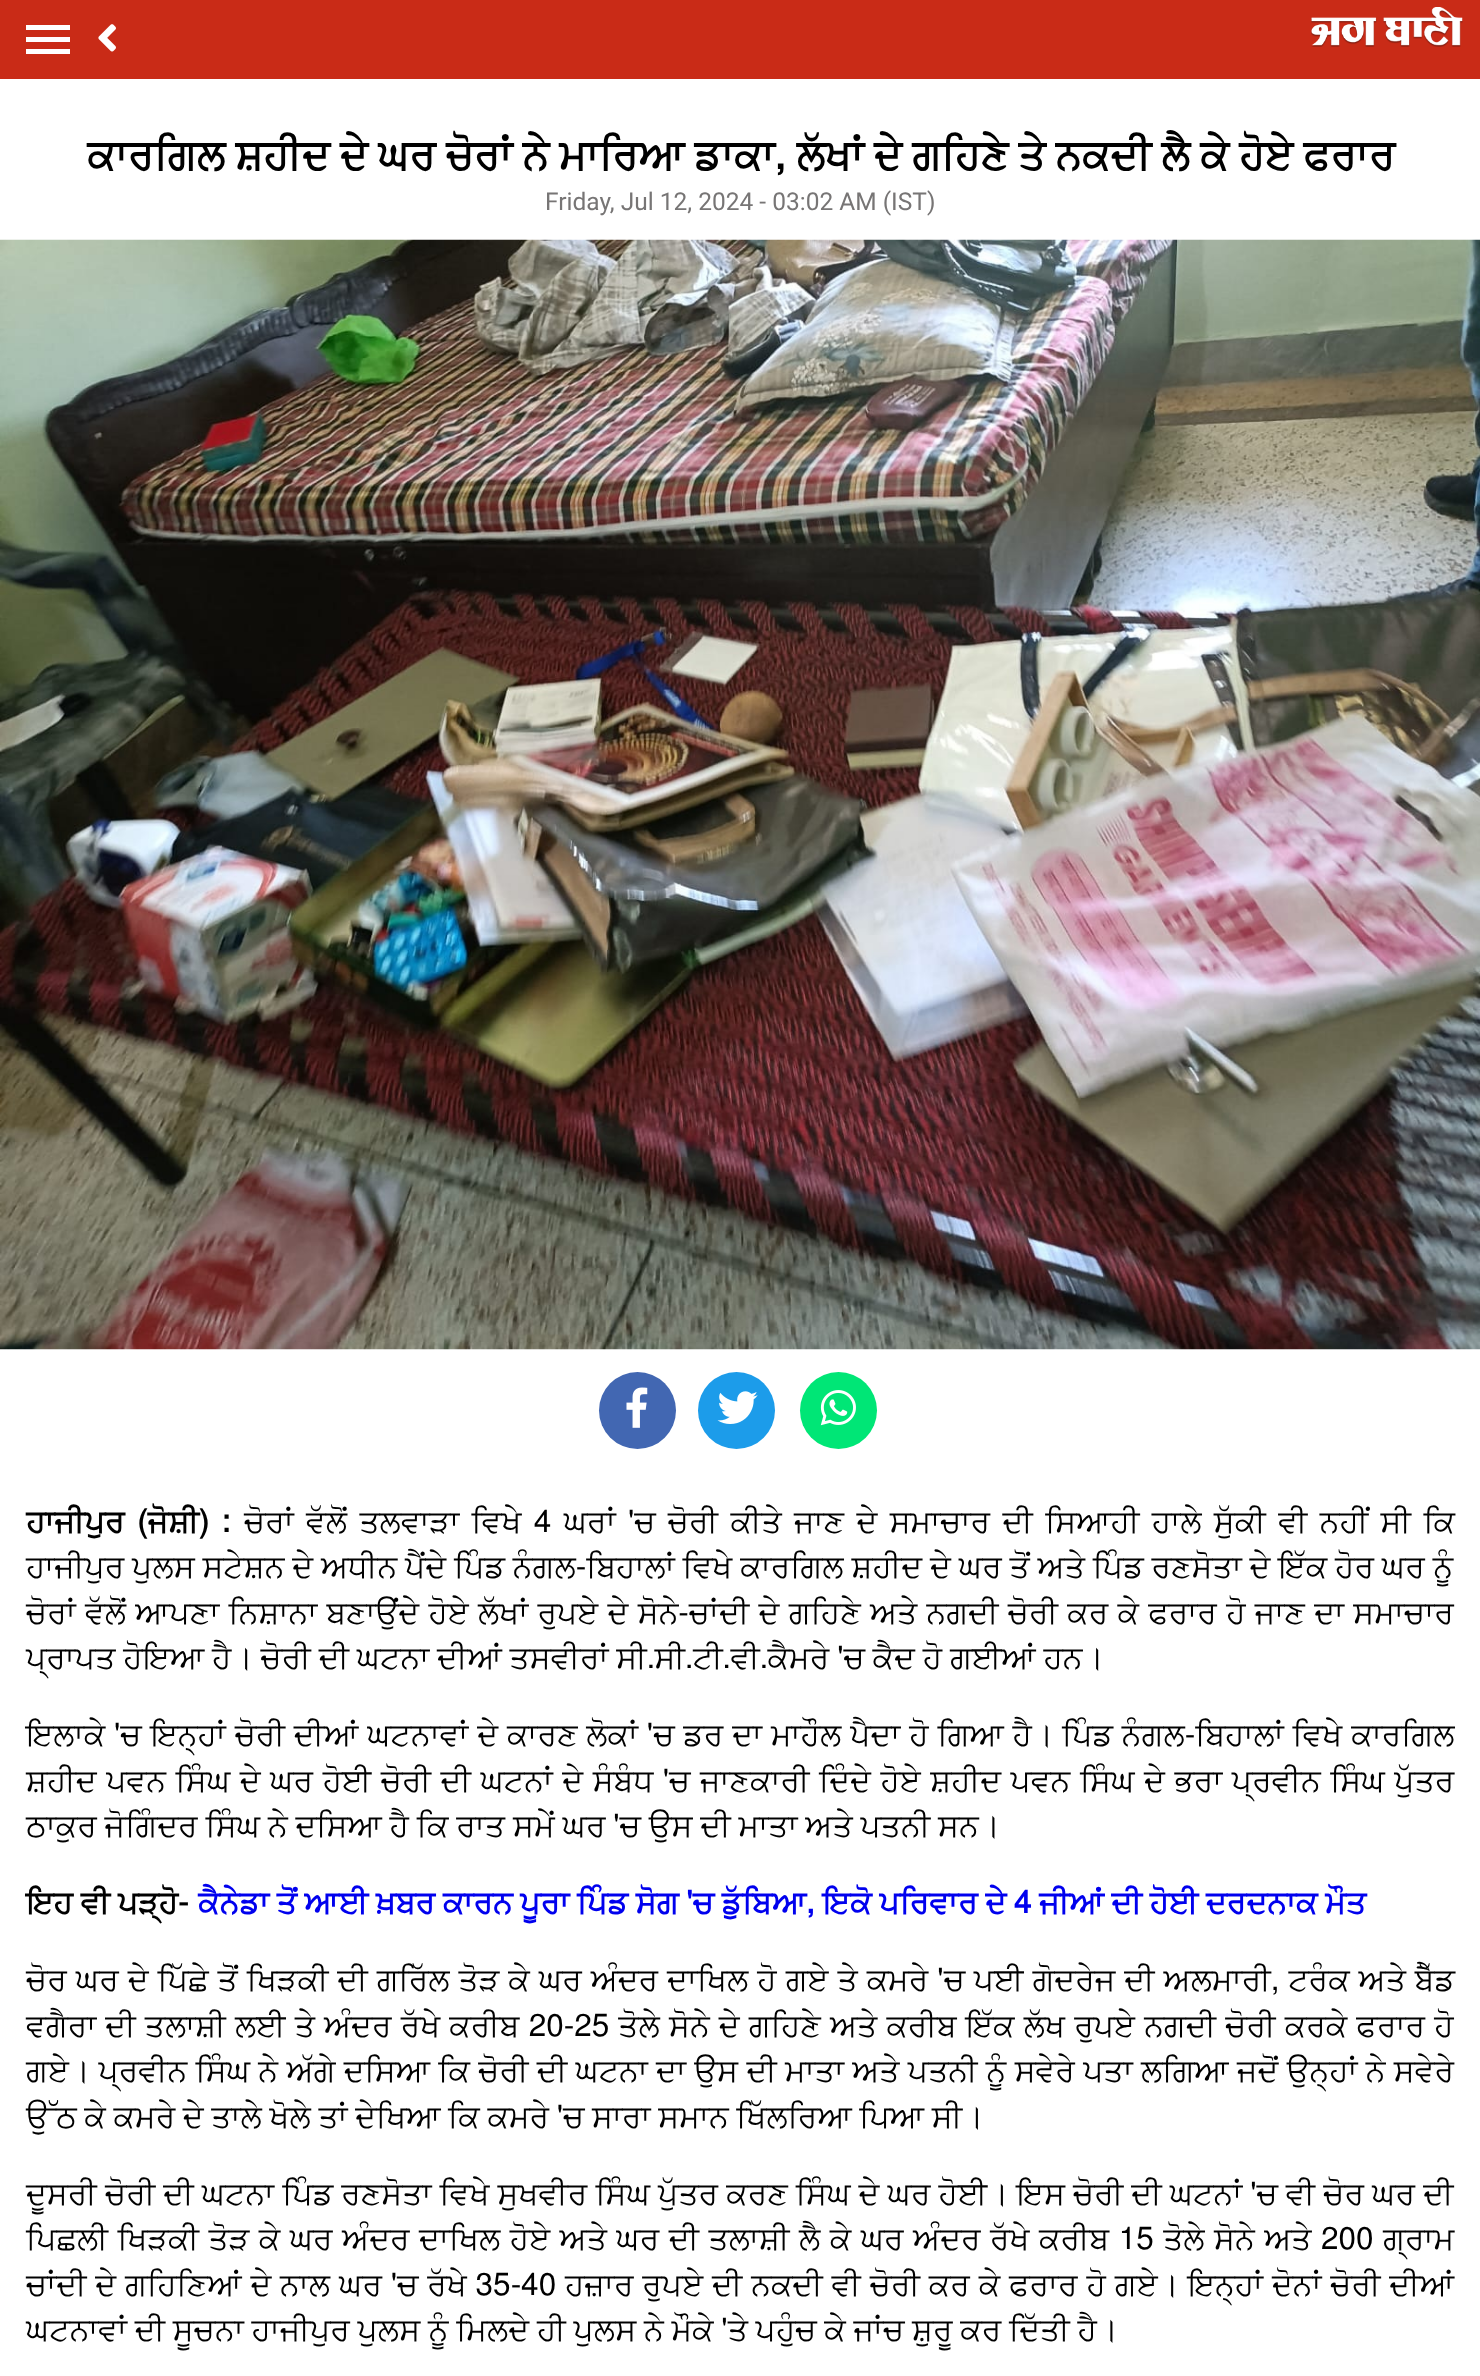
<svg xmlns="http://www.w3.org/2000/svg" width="1480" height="2376">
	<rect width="100%" height="100%" fill="#C92B17" />
	<rect x="26" y="25" width="44" height="5" fill="#FFFFFF" />
	<rect x="26" y="37" width="44" height="5" fill="#FFFFFF" />
	<rect x="26" y="49" width="44" height="5" fill="#FFFFFF" />
	<image x="98" y="24" width="18" height="28" href="assets/img1.png" />
	<image x="1311" y="7" width="152" height="40" href="assets/img2.png" />
	<rect x="0" y="79" width="1480" height="2297" fill="#FFFFFF" />
	<text x="87" y="169" word-spacing="-0.1" font-family="FreeSans" font-size="42" font-weight="700" fill="#000000">ਕਾਰਗਿਲ ਸ਼ਹੀਦ ਦੇ ਘਰ ਚੋਰਾਂ ਨੇ ਮਾਰਿਆ ਡਾਕਾ, ਲੱਖਾਂ ਦੇ ਗਹਿਣੇ ਤੇ ਨਕਦੀ ਲੈ ਕੇ ਹੋਏ ਫਰਾਰ</text>
	<text x="545" y="210" font-family="Roboto" font-size="24.5" fill="#777575">Friday, Jul 12, 2024 - 03:02 AM (IST)</text>
	<image x="0" y="239" width="1480" height="1111" href="assets/img3.png" />
	<circle cx="637.5" cy="1410.5" r="38.5" fill="#4267B2" />
	<image x="626" y="1387" width="22" height="41" href="assets/img4.png" />
	<circle cx="736.5" cy="1410.5" r="38.5" fill="#1C9CEA" />
	<image x="717" y="1391" width="41" height="33" href="assets/img5.png" />
	<circle cx="838.5" cy="1410.5" r="38.5" fill="#00E676" />
	<image x="820" y="1390" width="36" height="36" href="assets/img6.png" />
	<text x="26" y="1532" word-spacing="5" font-family="FreeSans" font-size="31.5" font-weight="700" fill="#000000">ਹਾਜੀਪੁਰ (ਜੋਸ਼ੀ) :</text>
	<g font-family="FreeSans" font-size="31.5" fill="#000000">
		<text x="244" y="1532" word-spacing="4.5">ਚੋਰਾਂ ਵੱਲੋਂ ਤਲਵਾੜਾ ਵਿਖੇ 4 ਘਰਾਂ 'ਚ ਚੋਰੀ ਕੀਤੇ ਜਾਣ ਦੇ ਸਮਾਚਾਰ ਦੀ ਸਿਆਹੀ ਹਾਲੇ ਸੁੱਕੀ ਵੀ ਨਹੀਂ ਸੀ ਕਿ</text>
		<text x="26" y="1577">ਹਾਜੀਪੁਰ ਪੁਲਸ ਸਟੇਸ਼ਨ ਦੇ ਅਧੀਨ ਪੈਂਦੇ ਪਿੰਡ ਨੰਗਲ-ਬਿਹਾਲਾਂ ਵਿਖੇ ਕਾਰਗਿਲ ਸ਼ਹੀਦ ਦੇ ਘਰ ਤੋਂ ਅਤੇ ਪਿੰਡ ਰਣਸੋਤਾ ਦੇ ਇੱਕ ਹੋਰ ਘਰ ਨੂੰ</text>
		<text x="26" y="1623" word-spacing="1.4">ਚੋਰਾਂ ਵੱਲੋਂ ਆਪਣਾ ਨਿਸ਼ਾਨਾ ਬਣਾਉਂਦੇ ਹੋਏ ਲੱਖਾਂ ਰੁਪਏ ਦੇ ਸੋਨੇ-ਚਾਂਦੀ ਦੇ ਗਹਿਣੇ ਅਤੇ ਨਗਦੀ ਚੋਰੀ ਕਰ ਕੇ ਫਰਾਰ ਹੋ ਜਾਣ ਦਾ ਸਮਾਚਾਰ</text>
		<text x="26" y="1668">ਪ੍ਰਾਪਤ ਹੋਇਆ ਹੈ। ਚੋਰੀ ਦੀ ਘਟਨਾ ਦੀਆਂ ਤਸਵੀਰਾਂ ਸੀ.ਸੀ.ਟੀ.ਵੀ.ਕੈਮਰੇ 'ਚ ਕੈਦ ਹੋ ਗਈਆਂ ਹਨ।</text>
		<text x="26" y="1745" word-spacing="1">ਇਲਾਕੇ 'ਚ ਇਨ੍ਹਾਂ ਚੋਰੀ ਦੀਆਂ ਘਟਨਾਵਾਂ ਦੇ ਕਾਰਣ ਲੋਕਾਂ 'ਚ ਡਰ ਦਾ ਮਾਹੌਲ ਪੈਦਾ ਹੋ ਗਿਆ ਹੈ। ਪਿੰਡ ਨੰਗਲ-ਬਿਹਾਲਾਂ ਵਿਖੇ ਕਾਰਗਿਲ</text>
		<text x="26" y="1791" word-spacing="1.7">ਸ਼ਹੀਦ ਪਵਨ ਸਿੰਘ ਦੇ ਘਰ ਹੋਈ ਚੋਰੀ ਦੀ ਘਟਨਾਂ ਦੇ ਸੰਬੰਧ 'ਚ ਜਾਣਕਾਰੀ ਦਿੰਦੇ ਹੋਏ ਸ਼ਹੀਦ ਪਵਨ ਸਿੰਘ ਦੇ ਭਰਾ ਪ੍ਰਵੀਨ ਸਿੰਘ ਪੁੱਤਰ</text>
		<text x="26" y="1836">ਠਾਕੁਰ ਜੋਗਿੰਦਰ ਸਿੰਘ ਨੇ ਦਸਿਆ ਹੈ ਕਿ ਰਾਤ ਸਮੇਂ ਘਰ 'ਚ ਉਸ ਦੀ ਮਾਤਾ ਅਤੇ ਪਤਨੀ ਸਨ।</text>
	</g>
	<text x="26" y="1913" font-family="FreeSans" font-size="31.5" font-weight="700" fill="#000000">ਇਹ ਵੀ ਪੜ੍ਹੋ-</text>
	<text x="198" y="1913" word-spacing="-0.1" font-family="FreeSans" font-size="31.5" font-weight="700" fill="#0000EE">ਕੈਨੇਡਾ ਤੋਂ ਆਈ ਖ਼ਬਰ ਕਾਰਨ ਪੂਰਾ ਪਿੰਡ ਸੋਗ 'ਚ ਡੁੱਬਿਆ, ਇਕੋ ਪਰਿਵਾਰ ਦੇ 4 ਜੀਆਂ ਦੀ ਹੋਈ ਦਰਦਨਾਕ ਮੌਤ</text>
	<g font-family="FreeSans" font-size="31.5" fill="#000000">
		<text x="26" y="1990" word-spacing="1.1">ਚੋਰ ਘਰ ਦੇ ਪਿੱਛੇ ਤੋਂ ਖਿੜਕੀ ਦੀ ਗਰਿੱਲ ਤੋੜ ਕੇ ਘਰ ਅੰਦਰ ਦਾਖਿਲ ਹੋ ਗਏ ਤੇ ਕਮਰੇ 'ਚ ਪਈ ਗੋਦਰੇਜ ਦੀ ਅਲਮਾਰੀ, ਟਰੰਕ ਅਤੇ ਬੈੱਡ</text>
		<text x="26" y="2036" word-spacing="1.3">ਵਗੈਰਾ ਦੀ ਤਲਾਸ਼ੀ ਲਈ ਤੇ ਅੰਦਰ ਰੱਖੇ ਕਰੀਬ 20-25 ਤੋਲੇ ਸੋਨੇ ਦੇ ਗਹਿਣੇ ਅਤੇ ਕਰੀਬ ਇੱਕ ਲੱਖ ਰੁਪਏ ਨਗਦੀ ਚੋਰੀ ਕਰਕੇ ਫਰਾਰ ਹੋ</text>
		<text x="26" y="2081" word-spacing="0.45">ਗਏ। ਪ੍ਰਵੀਨ ਸਿੰਘ ਨੇ ਅੱਗੇ ਦਸਿਆ ਕਿ ਚੋਰੀ ਦੀ ਘਟਨਾ ਦਾ ਉਸ ਦੀ ਮਾਤਾ ਅਤੇ ਪਤਨੀ ਨੂੰ ਸਵੇਰੇ ਪਤਾ ਲਗਿਆ ਜਦੋਂ ਉਨ੍ਹਾਂ ਨੇ ਸਵੇਰੇ</text>
		<text x="26" y="2127" word-spacing="-0.2">ਉੱਠ ਕੇ ਕਮਰੇ ਦੇ ਤਾਲੇ ਖੋਲੇ ਤਾਂ ਦੇਖਿਆ ਕਿ ਕਮਰੇ 'ਚ ਸਾਰਾ ਸਮਾਨ ਖਿੱਲਰਿਆ ਪਿਆ ਸੀ।</text>
		<text x="26" y="2204" word-spacing="0.25">ਦੂਸਰੀ ਚੋਰੀ ਦੀ ਘਟਨਾ ਪਿੰਡ ਰਣਸੋਤਾ ਵਿਖੇ ਸੁਖਵੀਰ ਸਿੰਘ ਪੁੱਤਰ ਕਰਣ ਸਿੰਘ ਦੇ ਘਰ ਹੋਈ। ਇਸ ਚੋਰੀ ਦੀ ਘਟਨਾਂ 'ਚ ਵੀ ਚੋਰ ਘਰ ਦੀ</text>
		<text x="26" y="2249" word-spacing="1.6">ਪਿਛਲੀ ਖਿੜਕੀ ਤੋੜ ਕੇ ਘਰ ਅੰਦਰ ਦਾਖਿਲ ਹੋਏ ਅਤੇ ਘਰ ਦੀ ਤਲਾਸ਼ੀ ਲੈ ਕੇ ਘਰ ਅੰਦਰ ਰੱਖੇ ਕਰੀਬ 15 ਤੋਲੇ ਸੋਨੇ ਅਤੇ 200 ਗ੍ਰਾਮ</text>
		<text x="26" y="2295" word-spacing="1">ਚਾਂਦੀ ਦੇ ਗਹਿਣਿਆਂ ਦੇ ਨਾਲ ਘਰ 'ਚ ਰੱਖੇ 35-40 ਹਜ਼ਾਰ ਰੁਪਏ ਦੀ ਨਕਦੀ ਵੀ ਚੋਰੀ ਕਰ ਕੇ ਫਰਾਰ ਹੋ ਗਏ। ਇਨ੍ਹਾਂ ਦੋਨਾਂ ਚੋਰੀ ਦੀਆਂ</text>
		<text x="26" y="2340" word-spacing="-0.1">ਘਟਨਾਵਾਂ ਦੀ ਸੂਚਨਾ ਹਾਜੀਪੁਰ ਪੁਲਸ ਨੂੰ ਮਿਲਦੇ ਹੀ ਪੁਲਸ ਨੇ ਮੌਕੇ 'ਤੇ ਪਹੁੰਚ ਕੇ ਜਾਂਚ ਸ਼ੁਰੂ ਕਰ ਦਿੱਤੀ ਹੈ।</text>
	</g>
</svg>
